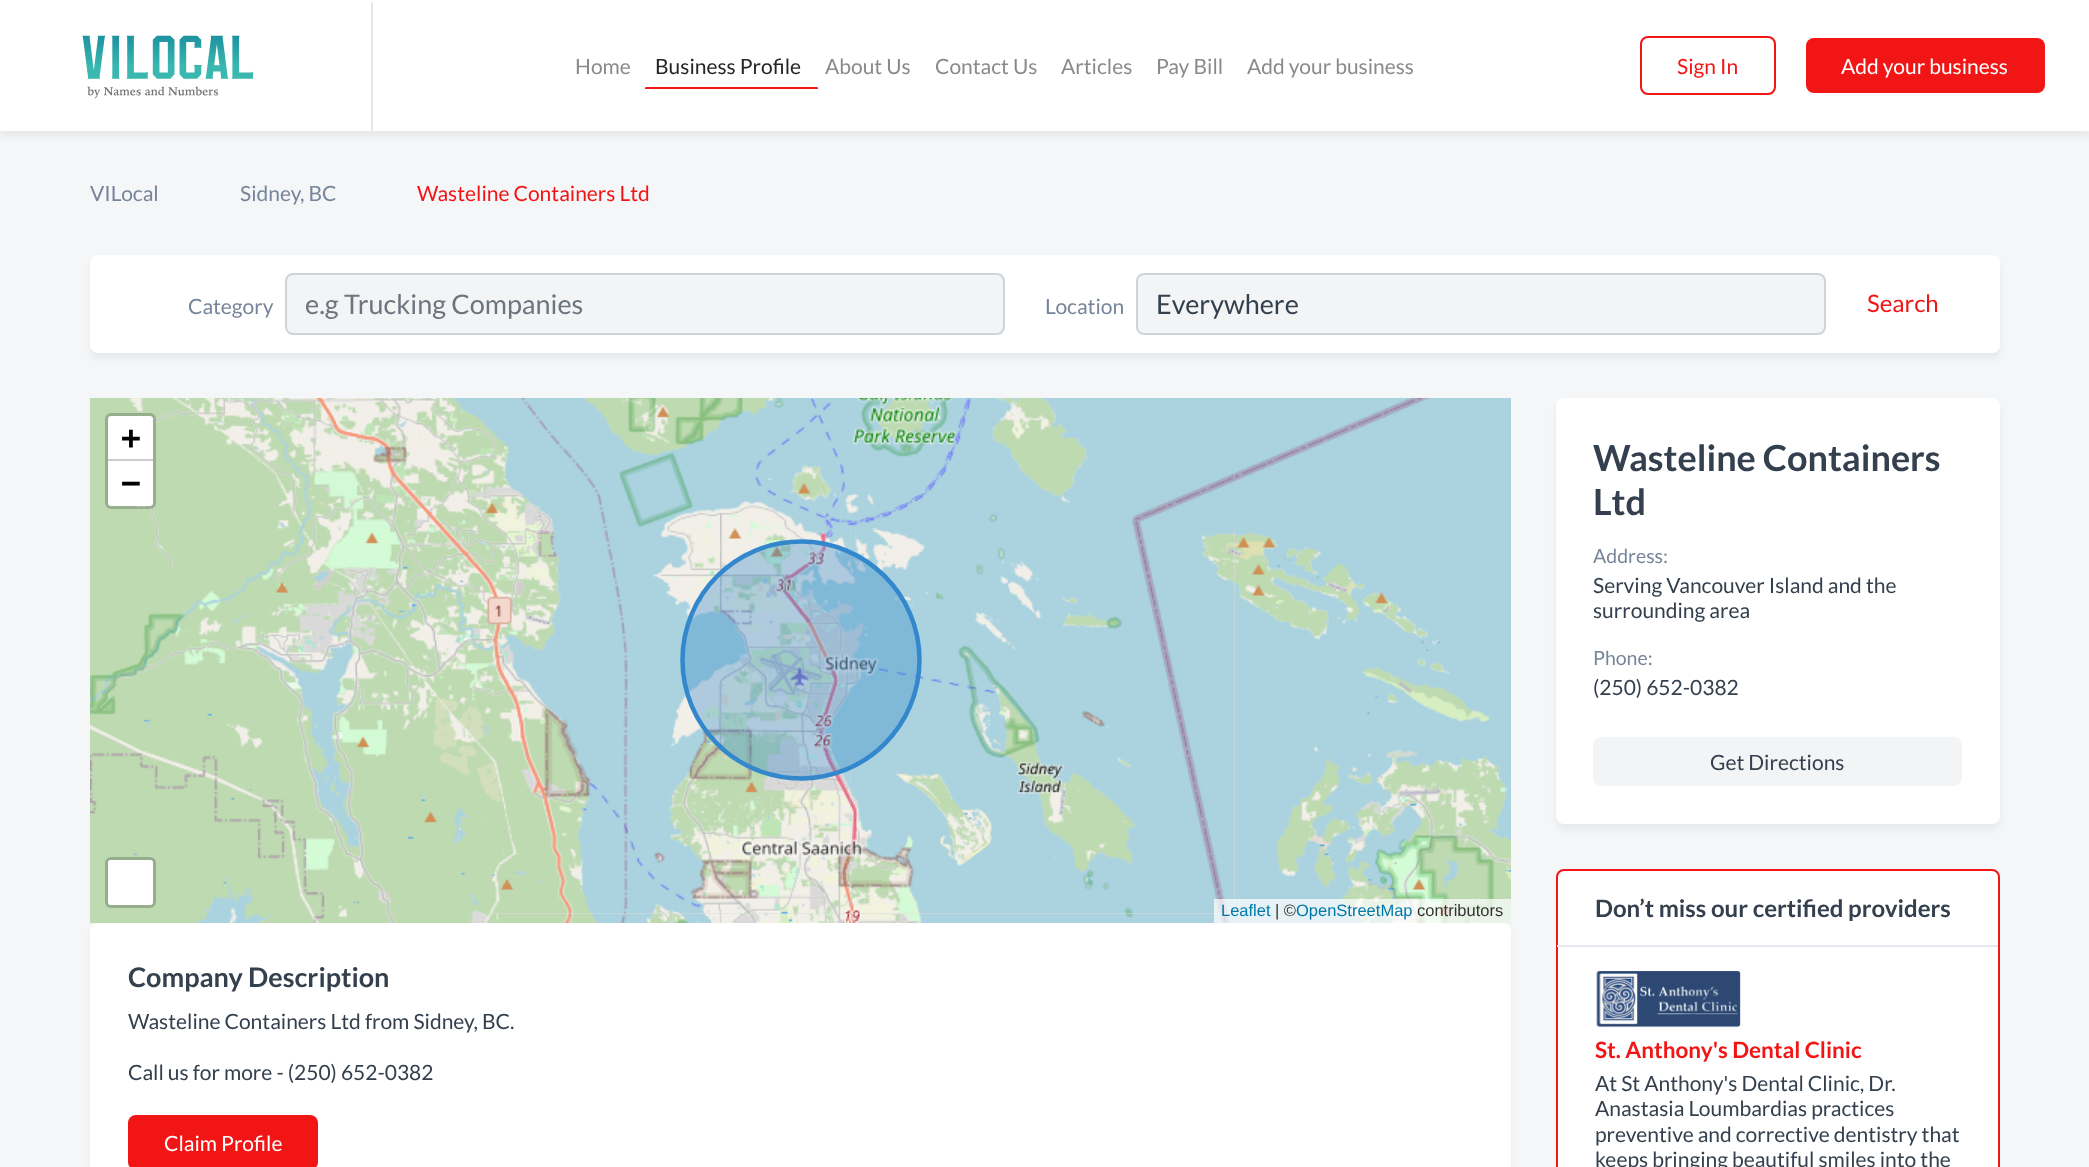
<svg xmlns="http://www.w3.org/2000/svg" width="2089" height="1167">
	<rect width="100%" height="100%" fill="#F5F6F8" />
	<rect x="0" y="6" width="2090" height="131" fill="#000000" fill-opacity="0.05" filter="blur(3px)" />
	<rect x="0" y="0" width="2089" height="131" fill="#FFFFFF" />
	<image x="82" y="35" width="171" height="64" href="assets/img1.png" />
	<rect x="371" y="2" width="2" height="130" fill="#DFDFDF" fill-opacity="0.75" />
	<text x="575" y="74" font-family="Lato" font-size="21" fill="#8A8A8A">Home</text>
	<text x="655" y="74" font-family="Lato" font-size="21" fill="#252525">Business Profile</text>
	<path d="M646.5 87H816.5C817.5 87 818 87.5 818 88.5V89H645V88.5C645 87.5 645.5 87 646.5 87Z" fill="#F21515" />
	<g font-family="Lato" font-size="21" fill="#8A8A8A">
		<text x="825" y="74">About Us</text>
		<text x="935" y="74">Contact Us</text>
		<text x="1061" y="74">Articles</text>
		<text x="1156" y="74">Pay Bill</text>
		<text x="1247" y="74">Add your business</text>
	</g>
	<rect x="1641" y="37" width="134" height="57" rx="7" fill="none" stroke="#F21515" stroke-width="2" />
	<text x="1677" y="74" font-family="Lato" font-size="21" fill="#F21515">Sign In</text>
	<rect x="1806" y="38" width="239" height="55" rx="8" fill="#F21515" />
	<text x="1841" y="74" font-family="Lato" font-size="21" fill="#FFFFFF">Add your business</text>
	<g font-family="Lato" font-size="21" fill="#77859A">
		<text x="90" y="201">VILocal</text>
		<text x="240" y="201">Sidney, BC</text>
	</g>
	<text x="417" y="201" font-family="Lato" font-size="21" fill="#F21515">Wasteline Containers Ltd</text>
	<rect x="90" y="261" width="1910" height="98" rx="8" fill="#000000" fill-opacity="0.05" filter="blur(3px)" />
	<rect x="90" y="255" width="1910" height="98" rx="8" fill="#FFFFFF" />
	<text x="188" y="314" font-family="Lato" font-size="21" fill="#77859A">Category</text>
	<rect x="286" y="274" width="718" height="60" rx="7" fill="#F2F4F6" stroke="#CED4DA" stroke-width="2" />
	<text x="305" y="314" font-family="Lato" font-size="27" fill="#6C757D">e.g Trucking Companies</text>
	<text x="1045" y="314" font-family="Lato" font-size="21" fill="#77859A">Location</text>
	<rect x="1137" y="274" width="688" height="60" rx="7" fill="#F2F4F6" stroke="#CED4DA" stroke-width="2" />
	<text x="1156" y="314" font-family="Lato" font-size="27" fill="#34404E">Everywhere</text>
	<text x="1867" y="312" font-family="Lato" font-size="24" fill="#F21515">Search</text>
	<rect x="467" y="530" width="768" height="384" fill="#DDDDDD" />
	<image x="90" y="398" width="377" height="132" href="assets/img2.png" />
	<image x="467" y="398" width="384" height="132" href="assets/img3.png" />
	<image x="851" y="398" width="384" height="132" href="assets/img4.png" />
	<image x="1235" y="398" width="276" height="132" href="assets/img5.png" />
	<image x="90" y="530" width="377" height="384" href="assets/img6.png" />
	<image x="467" y="530" width="384" height="384" href="assets/img7.png" />
	<image x="850" y="530" width="385" height="384" href="assets/img8.png" />
	<image x="1235" y="530" width="276" height="384" href="assets/img9.png" />
	<rect x="90" y="929" width="1421" height="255" rx="8" fill="#000000" fill-opacity="0.05" filter="blur(3px)" />
	<image x="90" y="914" width="377" height="9" href="assets/img10.png" />
	<image x="467" y="914" width="384" height="9" href="assets/img11.png" />
	<image x="851" y="914" width="384" height="9" href="assets/img12.png" />
	<image x="1235" y="914" width="276" height="9" href="assets/img13.png" />
	<path d="M682 660C682 725 735 778 801 778C866 778 919 725 919 660C919 594 866 541 801 541C735 541 682 594 682 660" fill="#3387CC" fill-opacity="0.35" fill-rule="evenodd" />
	<path d="M682.5 660C682.5 725.5 735.5 778.5 801 778.5C866 778.5 919.5 725.5 919.5 660C919.5 594.5 866 541.5 801 541.5C735.5 541.5 682.5 594.5 682.5 660" fill="none" stroke="#3387CC" stroke-width="4.5" stroke-linecap="round" stroke-linejoin="round" />
	<rect x="106.5" y="414.5" width="48" height="93" rx="4.5" fill="none" stroke="#000000" stroke-opacity="0.2" stroke-width="3" />
	<path d="M111 416H150C151.5 416 153 417.5 153 419V461H108V419C108 417.5 109.5 416 111 416Z" fill="#FFFFFF" />
	<rect x="108" y="459" width="45" height="2" fill="#CCCCCC" />
	<text x="121" y="449" font-family="DejaVu Sans Mono" font-size="33" font-weight="700" fill="#000000">+</text>
	<path d="M108 461H153V503C153 504.5 151.5 506 150 506H111C109.5 506 108 504.5 108 503Z" fill="#FFFFFF" />
	<text x="121" y="494" font-family="DejaVu Sans Mono" font-size="33" font-weight="700" fill="#000000">−</text>
	<rect x="1214" y="899" width="297" height="24" fill="#FFFFFF" fill-opacity="0.7" />
	<text x="1221" y="916" font-family="Liberation Sans" font-size="16.5" fill="#0078A8">Leaflet</text>
	<text x="1275" y="916" font-family="Liberation Sans" font-size="16.5" fill="#333333">| ©</text>
	<text x="1296" y="916" font-family="Liberation Sans" font-size="16.5" fill="#0078A8">OpenStreetMap</text>
	<text x="1417" y="916" font-family="Liberation Sans" font-size="16.5" fill="#333333">contributors</text>
	<rect x="106.5" y="858.5" width="48" height="48" rx="4.5" fill="none" stroke="#97AE8E" stroke-width="3" />
	<rect x="108" y="860" width="45" height="45" rx="3" fill="#FFFFFF" />
	<rect x="90" y="923" width="1421" height="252" rx="8" fill="#FFFFFF" />
	<text x="128" y="987" font-family="Lato" font-size="27" font-weight="700" fill="#34404E">Company Description</text>
	<g font-family="Lato" font-size="21" fill="#34404E">
		<text x="128" y="1029">Wasteline Containers Ltd from Sidney, BC.</text>
		<text x="128" y="1080">Call us for more - (250) 652-0382</text>
	</g>
	<rect x="128" y="1115" width="190" height="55" rx="8" fill="#F21515" />
	<text x="164" y="1151" font-family="Lato" font-size="21" fill="#FFFFFF">Claim Profile</text>
	<rect x="1556" y="404" width="444" height="426" rx="8" fill="#000000" fill-opacity="0.05" filter="blur(3px)" />
	<rect x="1556" y="398" width="444" height="426" rx="8" fill="#FFFFFF" />
	<g font-family="Lato" font-size="36" font-weight="700" fill="#34404E">
		<text x="1593" y="471">Wasteline Containers</text>
		<text x="1593" y="515">Ltd</text>
	</g>
	<text x="1593" y="563" font-family="Lato" font-size="19.5" fill="#77859A">Address:</text>
	<g font-family="Lato" font-size="21" fill="#34404E">
		<text x="1593" y="593">Serving Vancouver Island and the</text>
		<text x="1593" y="618">surrounding area</text>
	</g>
	<text x="1593" y="665" font-family="Lato" font-size="19.5" fill="#77859A">Phone:</text>
	<text x="1593" y="695" font-family="Lato" font-size="21" fill="#34404E">(250) 652-0382</text>
	<rect x="1593" y="737" width="369" height="49" rx="8" fill="#F2F4F6" />
	<text x="1710" y="770" font-family="Lato" font-size="21" fill="#34404E">Get Directions</text>
	<rect x="1557" y="870" width="442" height="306" rx="7" fill="#FFFFFF" stroke="#F21515" stroke-width="2" />
	<rect x="1557" y="945" width="441" height="2" fill="#E2E8ED" />
	<text x="1595" y="917" font-family="Lato" font-size="24" font-weight="700" fill="#34404E">Don’t miss our certified providers</text>
	<image x="1596" y="971" width="145" height="57" href="assets/img14.png" />
	<text x="1595" y="1058" font-family="Lato" font-size="22.5" font-weight="700" fill="#F21515">St. Anthony's Dental Clinic</text>
	<g font-family="Lato" font-size="21" fill="#34404E">
		<text x="1595" y="1091">At St Anthony's Dental Clinic, Dr.</text>
		<text x="1595" y="1116">Anastasia Loumbardias practices</text>
		<text x="1595" y="1142">preventive and corrective dentistry that</text>
		<text x="1595" y="1167">keeps bringing beautiful smiles into the</text>
	</g>
</svg>
